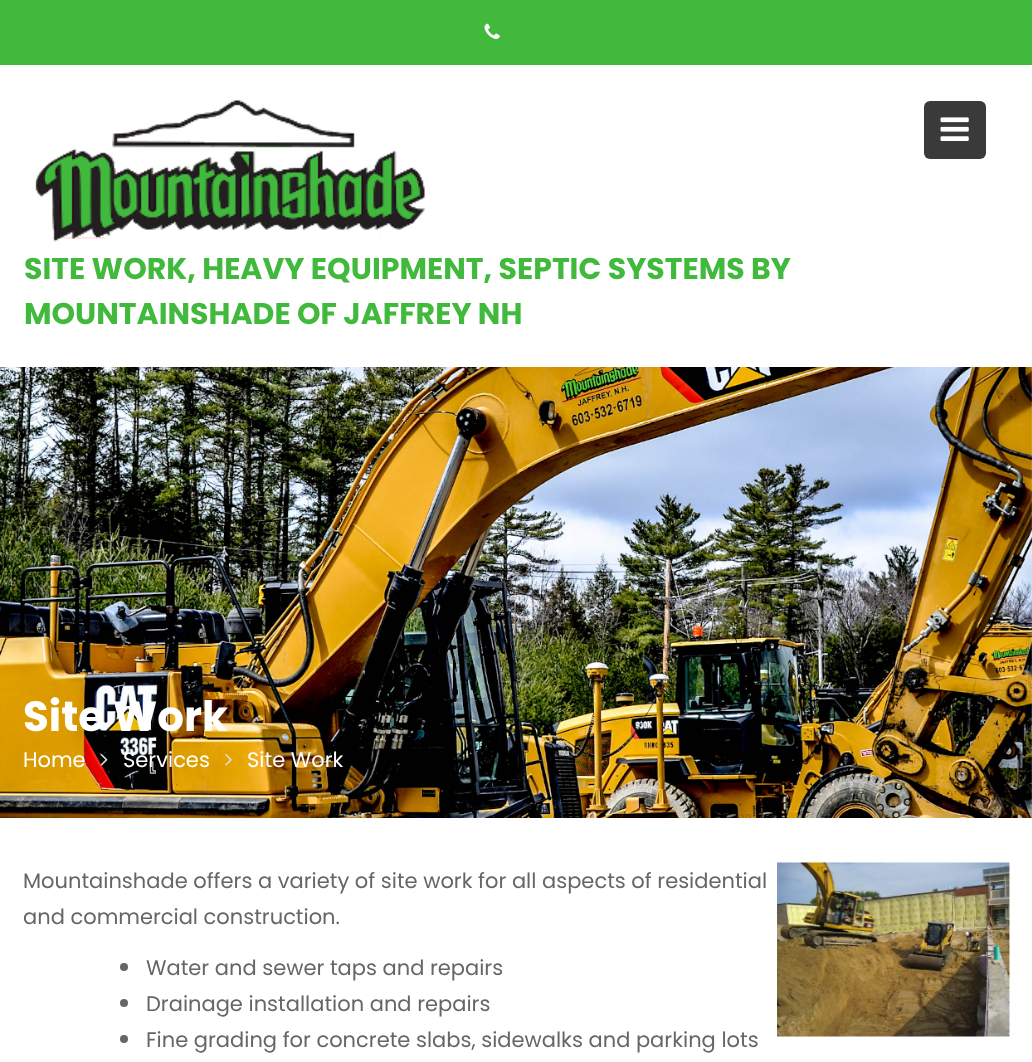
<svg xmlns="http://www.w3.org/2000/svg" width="1032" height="1062">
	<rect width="100%" height="100%" fill="#FFFFFF" />
	<rect x="0" y="0" width="1032" height="65" fill="#40B93C" />
	<image x="484" y="23" width="16" height="16" href="assets/img1.png" />
	<image x="35" y="100" width="390" height="142" href="assets/img2.png" />
	<rect x="924" y="101" width="62" height="58" rx="6" fill="#3A3A3A" />
	<image x="940" y="117" width="29" height="24" href="assets/img3.png" />
	<g font-family="Poppins" font-size="30" font-weight="700" fill="#40B93C">
		<text x="24" y="279">SITE WORK, HEAVY EQUIPMENT, SEPTIC SYSTEMS BY</text>
		<text x="24" y="324">MOUNTAINSHADE OF JAFFREY NH</text>
	</g>
	<image x="0" y="367" width="1032" height="451" href="assets/img4.png" />
	<text x="23" y="731" font-family="Poppins" font-size="42" font-weight="700" fill="#FFFFFF">Site Work</text>
	<text x="23" y="767" font-family="Poppins" font-size="21" fill="#FFFFFF">Home</text>
	<image x="100" y="754" width="8" height="12" href="assets/img5.png" />
	<text x="123" y="767" font-family="Poppins" font-size="21" fill="#FFFFFF">Services</text>
	<image x="225" y="754" width="7" height="12" href="assets/img6.png" />
	<text x="247" y="767" font-family="Poppins" font-size="21" fill="#FFFFFF">Site Work</text>
	<g font-family="Poppins" font-size="21" fill="#666666">
		<text x="23" y="888">Mountainshade offers a variety of site work for all aspects of residential</text>
		<text x="23" y="924">and commercial construction.</text>
	</g>
	<circle cx="124" cy="967" r="4" fill="#666666" />
	<text x="146" y="975" font-family="Poppins" font-size="21" fill="#666666">Water and sewer taps and repairs</text>
	<circle cx="124" cy="1003" r="4" fill="#666666" />
	<text x="146" y="1011" font-family="Poppins" font-size="21" fill="#666666">Drainage installation and repairs</text>
	<circle cx="124" cy="1039" r="4" fill="#666666" />
	<text x="146" y="1047" font-family="Poppins" font-size="21" fill="#666666">Fine grading for concrete slabs, sidewalks and parking lots</text>
	<image x="777" y="862" width="233" height="175" href="assets/img7.png" />
</svg>
